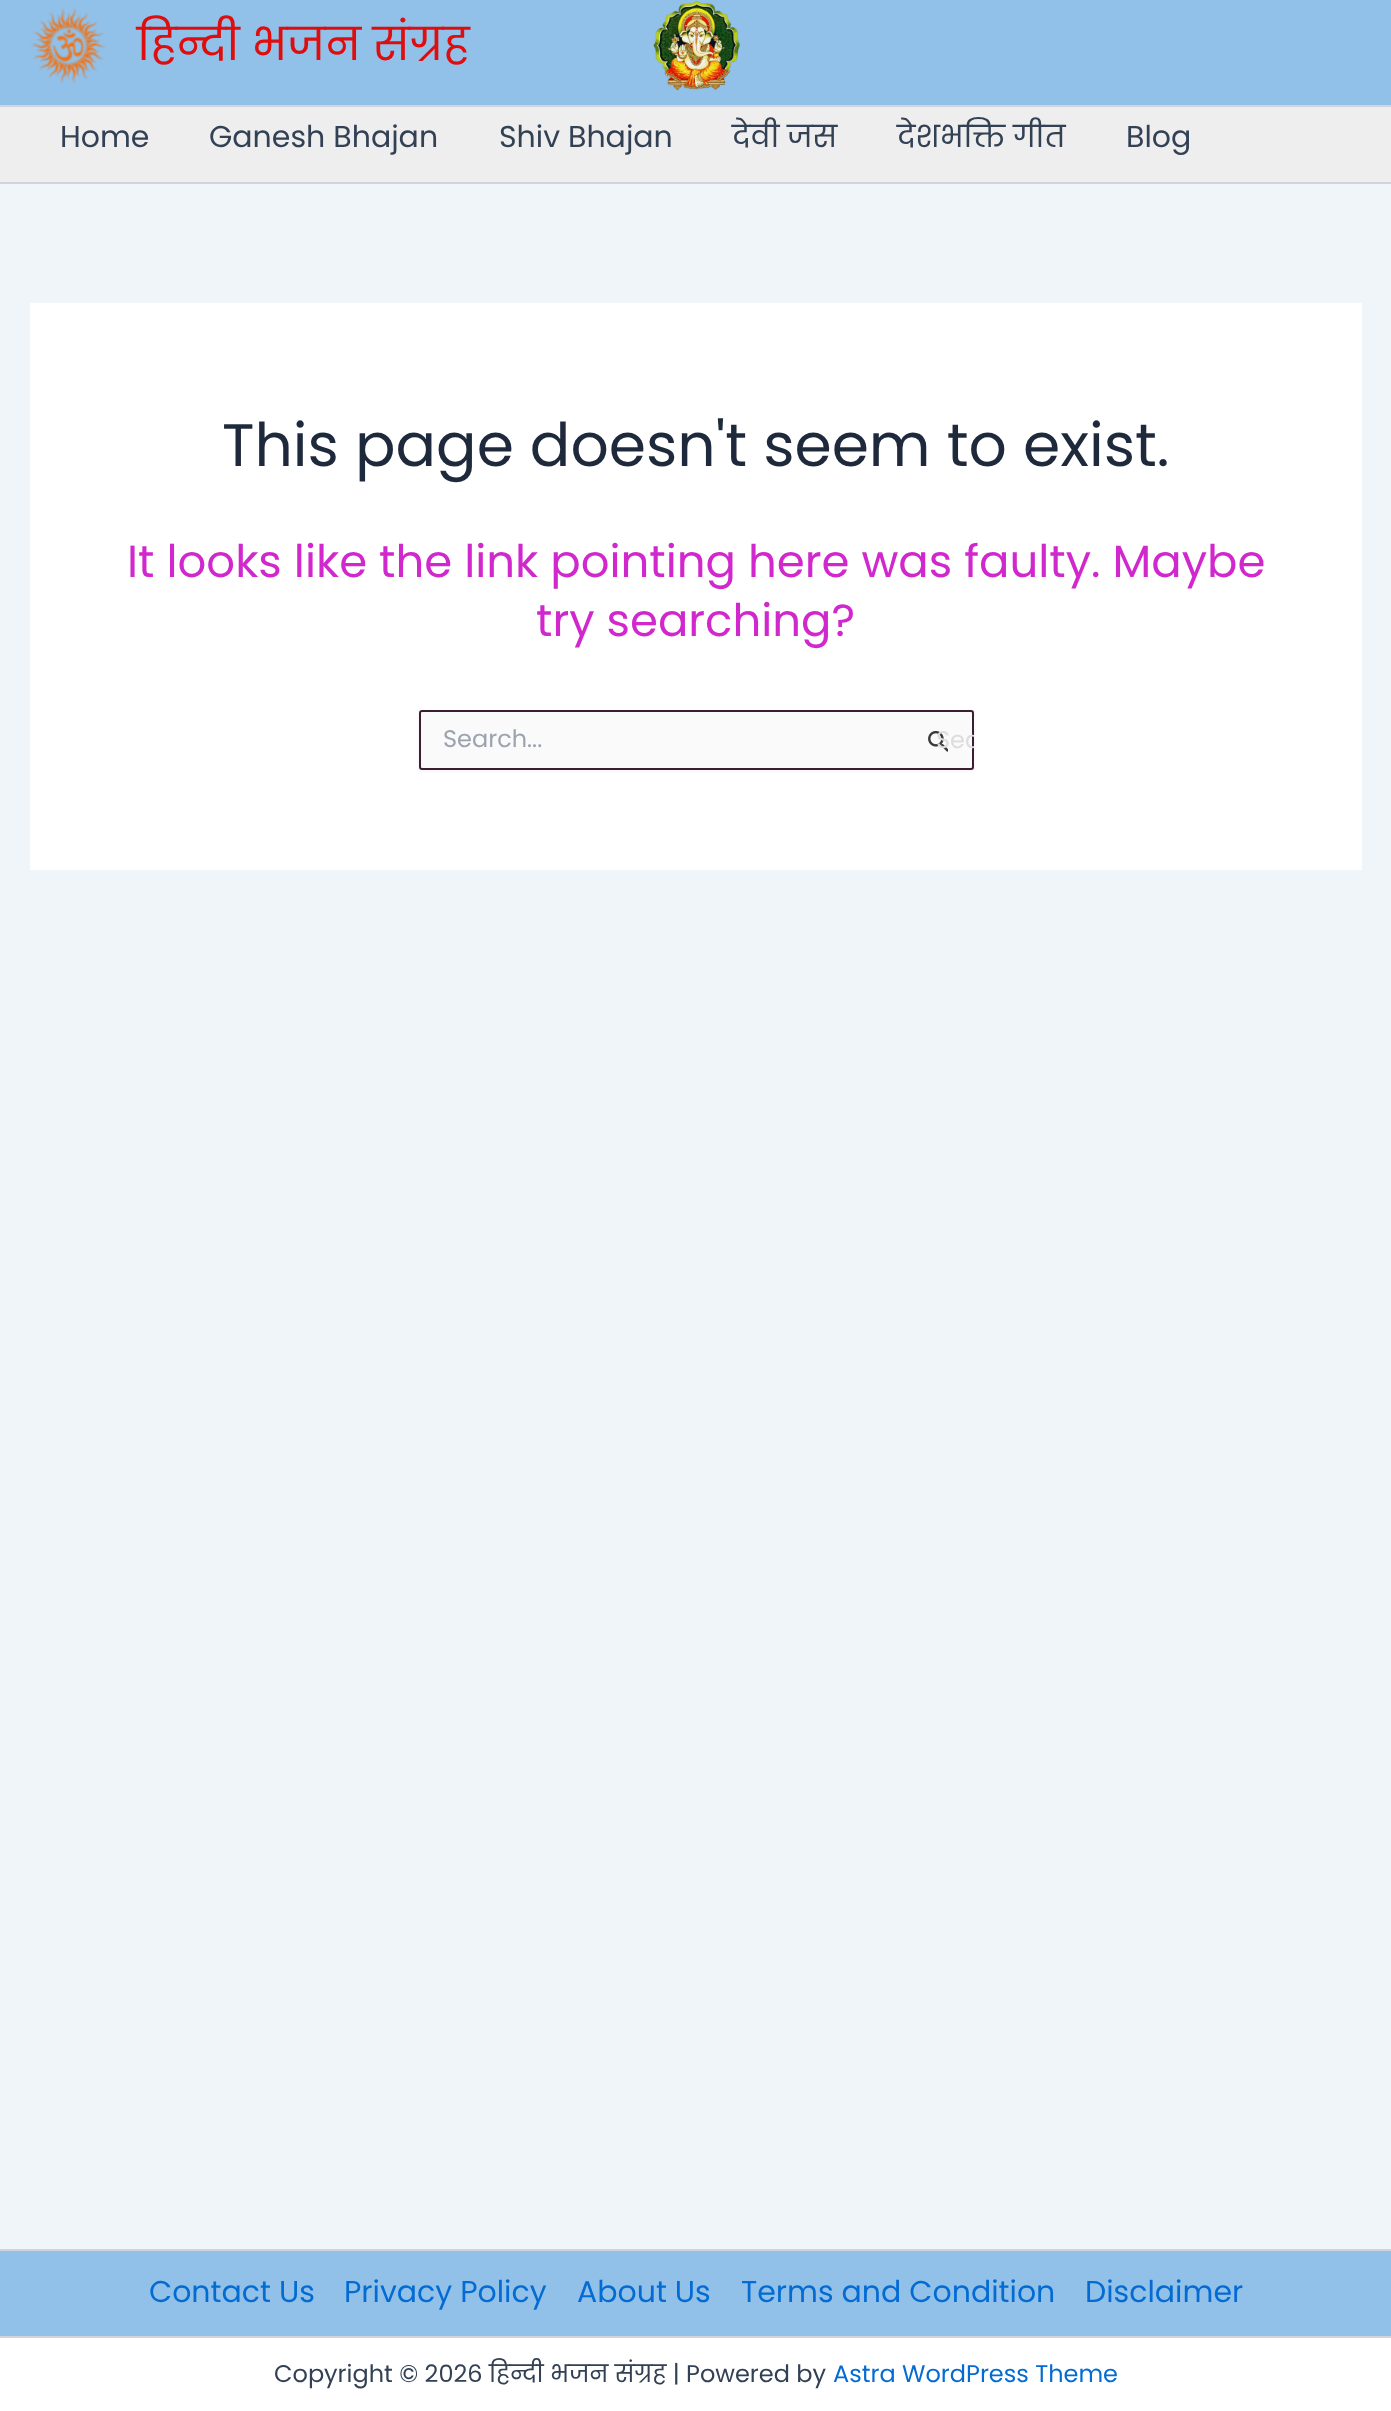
<svg xmlns="http://www.w3.org/2000/svg" width="1391" height="2411">
	<defs>
		<clipPath id="clip1"><rect x="906" y="710" width="68" height="63" rx="3" /></clipPath>
	</defs>
	<rect width="100%" height="100%" fill="#F0F5FA" />
	<rect x="0" y="0" width="1391" height="105" fill="#91C1E9" />
	<rect x="0" y="105" width="1391" height="2" fill="#D1D5DB" />
	<image x="30" y="7" width="77" height="77" href="assets/img1.png" />
	<text x="137" y="60" font-family="Poppins" font-size="45" fill="#DF0E0E">हिन्दी भजन संग्रह</text>
	<image x="653" y="0" width="88" height="91" href="assets/img2.png" />
	<rect x="0" y="107" width="1391" height="75" fill="#EEEEEE" />
	<rect x="0" y="182" width="1391" height="2" fill="#D1D5DB" />
	<g font-family="Poppins" font-size="30" fill="#334155">
		<text x="60" y="147">Home</text>
		<text x="209" y="147">Ganesh Bhajan</text>
		<text x="499" y="147">Shiv Bhajan</text>
		<text x="732" y="147">देवी जस</text>
		<text x="897" y="147">देशभक्ति गीत</text>
		<text x="1126" y="147">Blog</text>
	</g>
	<rect x="30" y="303" width="1332" height="567" fill="#FFFFFF" />
	<text x="222" y="466" font-family="Poppins" font-size="60" fill="#1E293B">This page doesn't seem to exist.</text>
	<g font-family="Poppins" font-size="45" fill="#D128CE">
		<text x="127" y="577">It looks like the link pointing here was faulty. Maybe</text>
		<text x="536" y="636">try searching?</text>
	</g>
	<rect x="419" y="711" width="555" height="60" rx="3" fill="#000000" fill-opacity="0.05" filter="blur(1.5px)" />
	<rect x="420" y="711" width="553" height="58" rx="2" fill="#FAFAFA" stroke="#3B1E2F" stroke-width="2" />
	<text x="443" y="747" font-family="Poppins" font-size="24" fill="#9CA3AF">Search...</text>
	<image x="928" y="731" width="20" height="21" href="assets/img3.png" />
	<g clip-path="url(#clip1)">
		<text x="936" y="748" font-family="Poppins" font-size="24" fill="#DEDDDE">Sea</text>
	</g>
	<rect x="0" y="2251" width="1391" height="85" fill="#91C1E9" />
	<rect x="0" y="2249" width="1391" height="2" fill="#D1D5DB" />
	<g font-family="Poppins" font-size="30" fill="#046BD2">
		<text x="149" y="2302">Contact Us</text>
		<text x="344" y="2302">Privacy Policy</text>
		<text x="577" y="2302">About Us</text>
		<text x="741" y="2302">Terms and Condition</text>
		<text x="1085" y="2302">Disclaimer</text>
	</g>
	<rect x="0" y="2338" width="1391" height="73" fill="#FFFFFF" />
	<rect x="0" y="2336" width="1391" height="2" fill="#D1D5DB" />
	<text x="274" y="2382" font-family="Poppins" font-size="24" fill="#334155">Copyright © 2026 हिन्दी भजन संग्रह | Powered by</text>
	<text x="833" y="2382" font-family="Poppins" font-size="24" fill="#046BD2">Astra WordPress Theme</text>
</svg>
